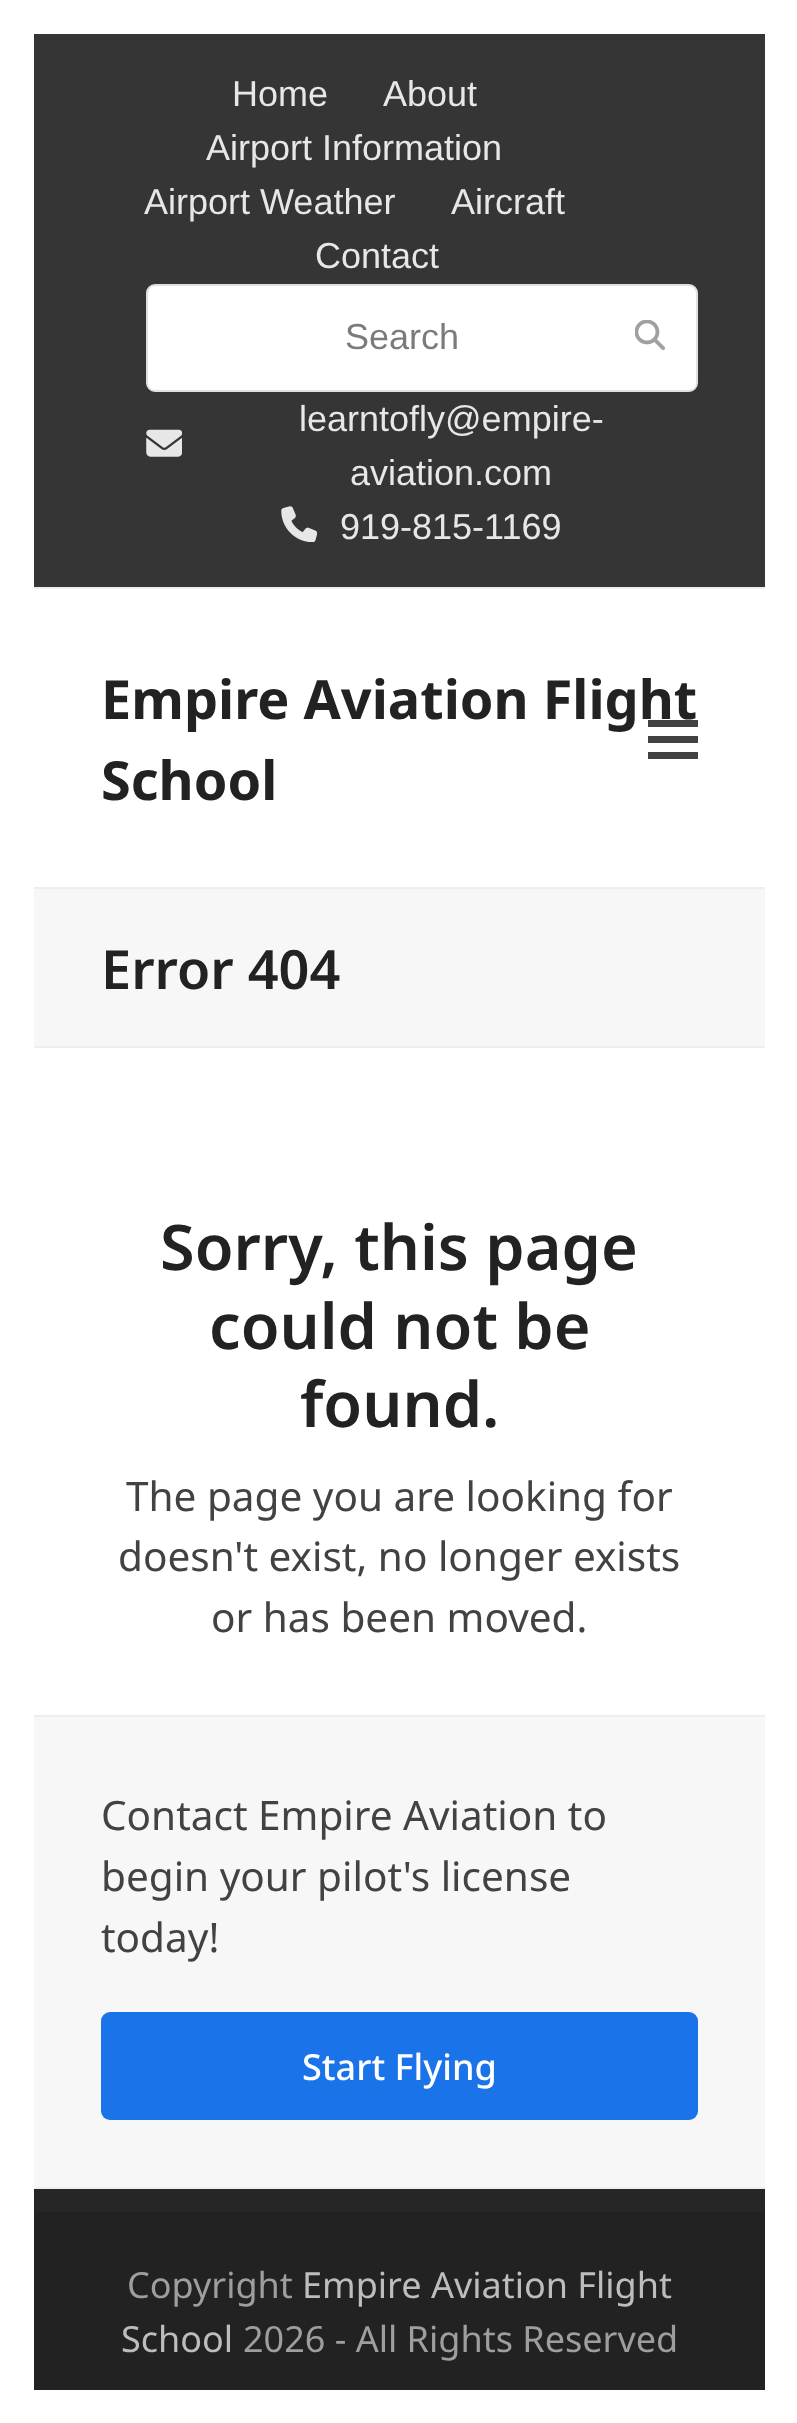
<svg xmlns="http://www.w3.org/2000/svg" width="797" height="2423">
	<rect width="100%" height="100%" fill="#FFFFFF" />
	<rect x="34" y="34" width="731" height="553" fill="#363535" />
	<rect x="34" y="587" width="731" height="2" fill="#EEEEEE" />
	<g font-family="Liberation Sans" font-size="36" fill="#E7E7E7">
		<text x="232" y="106">Home</text>
		<text x="383" y="106">About</text>
		<text x="206" y="160">Airport Information</text>
		<text x="144" y="214">Airport Weather</text>
		<text x="451" y="214">Aircraft</text>
		<text x="315" y="268">Contact</text>
	</g>
	<rect x="147" y="285" width="550" height="106" rx="8" fill="#FFFFFF" stroke="#E0E0E0" stroke-width="2" />
	<text x="345" y="349" font-family="Liberation Sans" font-size="36" fill="#7B7B7B">Search</text>
	<image x="635" y="320" width="30" height="30" href="assets/img1.png" />
	<image x="146" y="429" width="36" height="28" href="assets/img2.png" />
	<g font-family="Liberation Sans" font-size="36" fill="#E7E7E7">
		<text x="299" y="431">learntofly@empire-</text>
		<text x="350" y="485">aviation.com</text>
	</g>
	<image x="281" y="506" width="36" height="36" href="assets/img3.png" />
	<text x="340" y="539" font-family="Liberation Sans" font-size="36" fill="#E7E7E7">919-815-1169</text>
	<g font-family="Noto Sans" font-size="54" font-weight="700" fill="#222222">
		<text x="101" y="719">Empire Aviation Flight</text>
		<text x="101" y="800">School</text>
	</g>
	<rect x="648" y="736" width="50" height="7" fill="#424242" />
	<rect x="648" y="720" width="50" height="7" fill="#424242" />
	<rect x="648" y="752" width="50" height="7" fill="#424242" />
	<rect x="34" y="889" width="731" height="157" fill="#F7F7F7" />
	<rect x="34" y="887" width="731" height="2" fill="#EEEEEE" />
	<rect x="34" y="1046" width="731" height="2" fill="#EEEEEE" />
	<text x="101" y="989" font-family="Noto Sans" font-size="54" font-weight="600" fill="#222222">Error 404</text>
	<g font-family="Noto Sans" font-size="63" font-weight="600" fill="#222222">
		<text x="160" y="1270">Sorry, this page</text>
		<text x="209" y="1349">could not be</text>
		<text x="300" y="1427">found.</text>
	</g>
	<g font-family="Noto Sans" font-size="40.5" fill="#424242">
		<text x="126" y="1511">The page you are looking for</text>
		<text x="118" y="1571">doesn't exist, no longer exists</text>
		<text x="211" y="1632">or has been moved.</text>
	</g>
	<rect x="34" y="1717" width="731" height="470" fill="#F7F7F7" />
	<rect x="34" y="1715" width="731" height="2" fill="#EEEEEE" />
	<rect x="34" y="2187" width="731" height="2" fill="#EEEEEE" />
	<g font-family="Noto Sans" font-size="40.5" fill="#424242">
		<text x="101" y="1830">Contact Empire Aviation to</text>
		<text x="101" y="1891">begin your pilot's license</text>
		<text x="101" y="1952">today!</text>
	</g>
	<rect x="101" y="2012" width="597" height="108" rx="9" fill="#1A73E8" />
	<text x="302" y="2080" font-family="Noto Sans" font-size="36" font-weight="500" fill="#FFFFFF">Start Flying</text>
	<rect x="34" y="2189" width="731" height="23" fill="#262626" />
	<rect x="34" y="2212" width="731" height="178" fill="#222222" />
	<text x="127" y="2298" font-family="Noto Sans" font-size="36" fill="#9E9E9E">Copyright</text>
	<g font-family="Noto Sans" font-size="36" fill="#BDBDBD">
		<text x="302" y="2298">Empire Aviation Flight</text>
		<text x="121" y="2352">School</text>
	</g>
	<text x="243" y="2352" font-family="Noto Sans" font-size="36" fill="#9E9E9E">2026 - All Rights Reserved</text>
</svg>
